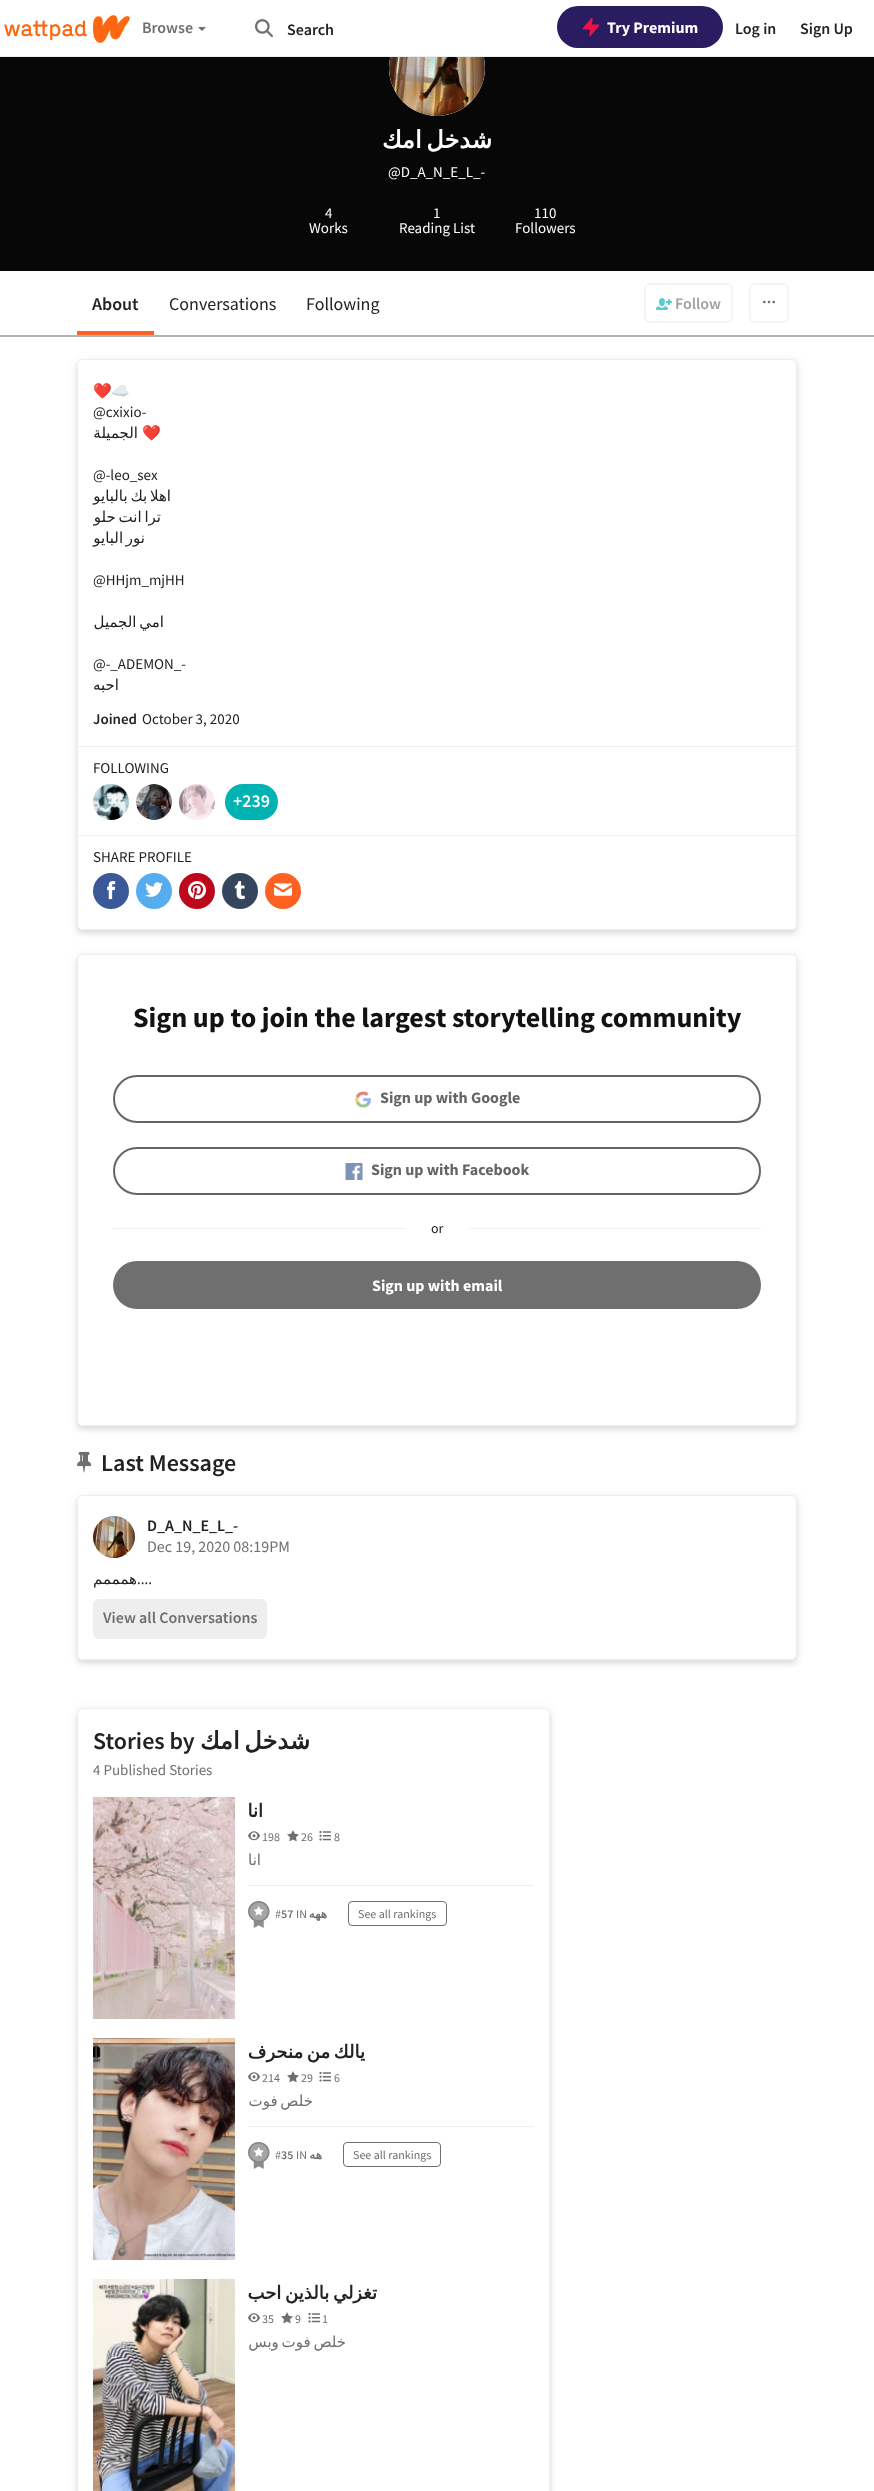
<svg xmlns="http://www.w3.org/2000/svg" width="874" height="2491">
	<rect width="100%" height="100%" fill="#FFFFFF" />
	<rect x="0" y="57" width="874" height="214" fill="#070707" />
	<circle cx="437" cy="68" r="48" fill="#EEEEEE" />
	<rect x="390" y="20" width="94" height="36" fill="#FFFFFF" />
	<rect x="0" y="56" width="874" height="1" fill="#EEEEEE" />
	<image x="4" y="15" width="126" height="28" href="assets/img1.png" />
	<text x="142" y="33" font-family="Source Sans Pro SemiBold" font-size="16" font-weight="600" fill="#6F6F6F">Browse</text>
	<path d="M198 27H206L202 31Z" fill="#6F6F6F" />
	<image x="255" y="19" width="18" height="19" href="assets/img2.png" />
	<text x="287" y="35" font-family="Source Sans Pro SemiBold" font-size="16" font-weight="600" fill="#222222">Search</text>
	<rect x="557" y="6" width="166" height="42" rx="21" fill="#2A1C60" />
	<image x="582" y="17" width="18" height="20" href="assets/img3.png" />
	<text x="607" y="33" font-family="Source Sans Pro" font-size="16" font-weight="700" fill="#FFFFFF">Try Premium</text>
	<g font-family="Source Sans Pro SemiBold" font-size="16" font-weight="600" fill="#222222">
		<text x="735" y="34">Log in</text>
		<text x="800" y="34">Sign Up</text>
	</g>
	<image x="389" y="57" width="96" height="59" href="assets/img4.png" />
	<text x="492" y="148" word-spacing="-3" font-family="DejaVu Sans" font-size="24" font-weight="700" direction="rtl" fill="#FFFFFF">شدخل امك</text>
	<g font-family="Source Sans Pro" font-size="15" fill="#FFFFFF">
		<text x="388" y="177">@D_A_N_E_L_-</text>
		<text x="325" y="218">4</text>
		<text x="309" y="233">Works</text>
		<text x="433" y="218">1</text>
		<text x="399" y="233">Reading List</text>
		<text x="534" y="218">110</text>
		<text x="515" y="233">Followers</text>
	</g>
	<rect x="0" y="335" width="874" height="2" fill="#B3B3B3" />
	<rect x="77" y="331" width="77" height="4" fill="#FF6122" />
	<text x="92" y="310" font-family="Source Sans Pro SemiBold" font-size="18" font-weight="600" fill="#222222">About</text>
	<g font-family="Source Sans Pro" font-size="18" fill="#222222">
		<text x="169" y="310">Conversations</text>
		<text x="306" y="310">Following</text>
	</g>
	<rect x="645" y="284" width="87" height="38" rx="5" fill="none" stroke="#F4F4F4" stroke-width="2" />
	<image x="656" y="298" width="16" height="12" href="assets/img5.png" />
	<text x="675" y="309" font-family="Source Sans Pro SemiBold" font-size="16" font-weight="600" fill="#A1A1A1">Follow</text>
	<rect x="750" y="284" width="38" height="38" rx="5" fill="none" stroke="#F4F4F4" stroke-width="2" />
	<circle cx="764.3" cy="302" r="0.7" fill="none" stroke="#6F6F6F" stroke-width="1.3" />
	<circle cx="769" cy="302" r="0.7" fill="none" stroke="#6F6F6F" stroke-width="1.3" />
	<circle cx="773.7" cy="302" r="0.7" fill="none" stroke="#6F6F6F" stroke-width="1.3" />
	<rect x="77" y="363" width="720" height="571" rx="5" fill="#222222" fill-opacity="0.1" filter="blur(2.5px)" />
	<rect x="77" y="360" width="720" height="571" rx="5" fill="#222222" fill-opacity="0.08" filter="blur(5px)" />
	<rect x="77.5" y="359.5" width="719" height="570" rx="4.5" fill="#FFFFFF" stroke="#EEEEEE" />
	<text x="93" y="396" font-family="Noto Color Emoji" font-size="15" fill="#222222">❤️☁️</text>
	<text x="93" y="417" font-family="Source Sans Pro" font-size="15" fill="#222222">@cxixio-</text>
	<text x="138" y="438" font-family="DejaVu Sans" font-size="15" direction="rtl" fill="#222222">الجميلة</text>
	<text x="142" y="438" font-family="Noto Color Emoji" font-size="15" fill="#222222">❤️</text>
	<text x="93" y="480" font-family="Source Sans Pro" font-size="15" fill="#222222">@-leo_sex</text>
	<g font-family="DejaVu Sans" font-size="15" direction="rtl" fill="#222222">
		<text x="171" y="501" word-spacing="-2">اهلا بك بالبايو</text>
		<text x="161" y="522" word-spacing="-2">ترا انت حلو</text>
		<text x="145" y="543" word-spacing="-2">نور البايو</text>
	</g>
	<text x="93" y="585" font-family="Source Sans Pro" font-size="15" fill="#222222">@HHjm_mjHH</text>
	<text x="164" y="627" word-spacing="-2" font-family="DejaVu Sans" font-size="15" direction="rtl" fill="#222222">امي الجميل</text>
	<text x="93" y="669" font-family="Source Sans Pro" font-size="15" fill="#222222">@-_ADEMON_-</text>
	<text x="119" y="690" font-family="DejaVu Sans" font-size="15" direction="rtl" fill="#222222">احبه</text>
	<text x="93" y="724" font-family="Source Sans Pro SemiBold" font-size="15" font-weight="600" fill="#222222">Joined</text>
	<text x="142" y="724" font-family="Source Sans Pro" font-size="15" fill="#222222">October 3, 2020</text>
	<rect x="78" y="746" width="718" height="1" fill="#EEEEEE" />
	<text x="93" y="773" font-family="Source Sans Pro" font-size="15" fill="#222222">FOLLOWING</text>
	<image x="93" y="784" width="36" height="36" href="assets/img6.png" />
	<image x="136" y="784" width="36" height="36" href="assets/img7.png" />
	<image x="179" y="784" width="36" height="36" href="assets/img8.png" />
	<rect x="225" y="784" width="53" height="36" rx="18" fill="#00B2B2" />
	<text x="233" y="807" font-family="Source Sans Pro SemiBold" font-size="18" font-weight="600" fill="#FFFFFF">+239</text>
	<rect x="78" y="835" width="718" height="1" fill="#EEEEEE" />
	<text x="93" y="862" font-family="Source Sans Pro" font-size="15" fill="#222222">SHARE PROFILE</text>
	<circle cx="111" cy="891" r="18" fill="#3B5998" />
	<image x="107" y="881" width="9" height="19" href="assets/img9.png" />
	<circle cx="154" cy="891" r="18" fill="#55ACEE" />
	<image x="145" y="882" width="18" height="15" href="assets/img10.png" />
	<circle cx="197" cy="891" r="18" fill="#BD081C" />
	<image x="188" y="881" width="18" height="19" href="assets/img11.png" />
	<circle cx="240" cy="891" r="18" fill="#35465C" />
	<image x="234" y="881" width="12" height="19" href="assets/img12.png" />
	<circle cx="283" cy="891" r="18" fill="#FF6122" />
	<image x="274" y="883" width="18" height="13" href="assets/img13.png" />
	<rect x="77" y="958" width="720" height="472" rx="5" fill="#222222" fill-opacity="0.1" filter="blur(2.5px)" />
	<rect x="77" y="955" width="720" height="472" rx="5" fill="#222222" fill-opacity="0.08" filter="blur(5px)" />
	<rect x="77.5" y="954.5" width="719" height="471" rx="4.5" fill="#FFFFFF" stroke="#EEEEEE" />
	<text x="133" y="1027" font-family="Source Sans Pro" font-size="28" font-weight="700" fill="#121212">Sign up to join the largest storytelling community</text>
	<rect x="114" y="1076" width="646" height="46" rx="23" fill="none" stroke="#656565" stroke-width="2" />
	<image x="354" y="1091" width="18" height="17" href="assets/img14.png" />
	<text x="380" y="1103" font-family="Source Sans Pro" font-size="16" font-weight="700" fill="#656565">Sign up with Google</text>
	<rect x="114" y="1148" width="646" height="46" rx="23" fill="none" stroke="#656565" stroke-width="2" />
	<image x="345" y="1163" width="18" height="17" href="assets/img15.png" />
	<text x="371" y="1175" font-family="Source Sans Pro" font-size="16" font-weight="700" fill="#656565">Sign up with Facebook</text>
	<rect x="113" y="1228" width="292" height="1" fill="#EEEEEE" />
	<text x="431" y="1233" font-family="Source Sans Pro" font-size="14" fill="#222222">or</text>
	<rect x="469" y="1228" width="292" height="1" fill="#EEEEEE" />
	<rect x="113" y="1261" width="648" height="48" rx="24" fill="#6F6F6F" />
	<text x="372" y="1291" font-family="Source Sans Pro" font-size="16" font-weight="700" fill="#FFFFFF">Sign up with email</text>
	<image x="77" y="1451" width="15" height="22" href="assets/img16.png" />
	<text x="101" y="1471" font-family="Source Sans Pro SemiBold" font-size="24" font-weight="600" fill="#222222">Last Message</text>
	<rect x="77" y="1499" width="720" height="165" rx="5" fill="#222222" fill-opacity="0.1" filter="blur(2.5px)" />
	<rect x="77" y="1496" width="720" height="165" rx="5" fill="#222222" fill-opacity="0.08" filter="blur(5px)" />
	<rect x="77.5" y="1495.5" width="719" height="164" rx="4.5" fill="#FFFFFF" stroke="#EEEEEE" />
	<circle cx="114" cy="1537" r="21" fill="#EEEEEE" />
	<image x="93" y="1516" width="42" height="42" href="assets/img17.png" />
	<text x="147" y="1531" font-family="Source Sans Pro SemiBold" font-size="16" font-weight="600" fill="#222222">D_A_N_E_L_-</text>
	<text x="147" y="1552" font-family="Source Sans Pro" font-size="16" fill="#6F6F6F">Dec 19, 2020 08:19PM</text>
	<text x="137" y="1584" font-family="DejaVu Sans" font-size="15" direction="rtl" fill="#222222">همممم</text>
	<text x="137" y="1584" font-family="Source Sans Pro" font-size="15" fill="#222222">....</text>
	<rect x="93" y="1599" width="174" height="40" rx="6" fill="#EEEEEE" />
	<text x="103" y="1623" font-family="Source Sans Pro SemiBold" font-size="16" font-weight="600" fill="#6F6F6F">View all Conversations</text>
	<rect x="77" y="1712" width="473" height="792" rx="5" fill="#222222" fill-opacity="0.1" filter="blur(2.5px)" />
	<rect x="77" y="1709" width="473" height="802" rx="5" fill="#222222" fill-opacity="0.08" filter="blur(5px)" />
	<rect x="77.5" y="1708.5" width="472" height="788" rx="4.5" fill="#FFFFFF" stroke="#EEEEEE" />
	<text x="93" y="1749" font-family="Source Sans Pro SemiBold" font-size="24" font-weight="600" fill="#222222">Stories by</text>
	<text x="310" y="1749" word-spacing="-3" font-family="DejaVu Sans" font-size="24" font-weight="700" direction="rtl" fill="#222222">شدخل امك</text>
	<text x="93" y="1775" font-family="Source Sans Pro" font-size="15" fill="#6F6F6F">4 Published Stories</text>
	<image x="93" y="1797" width="142" height="222" href="assets/img18.png" />
	<text x="263" y="1817" font-family="DejaVu Sans" font-size="18" font-weight="700" direction="rtl" fill="#222222">انا</text>
	<image x="248" y="1831" width="12" height="10" href="assets/img19.png" />
	<text x="262" y="1841" font-family="Source Sans Pro" font-size="12" fill="#6F6F6F">198</text>
	<image x="287" y="1830" width="12" height="12" href="assets/img20.png" />
	<text x="301" y="1841" font-family="Source Sans Pro" font-size="12" fill="#6F6F6F">26</text>
	<image x="319" y="1830" width="12" height="11" href="assets/img21.png" />
	<text x="334" y="1841" font-family="Source Sans Pro" font-size="12" fill="#6F6F6F">8</text>
	<text x="261" y="1865" font-family="DejaVu Sans" font-size="15" direction="rtl" fill="#6F6F6F">انا</text>
	<rect x="248" y="1885" width="286" height="1" fill="#EEEEEE" />
	<image x="248" y="1901" width="22" height="27" href="assets/img22.png" />
	<text x="275" y="1918" font-family="Source Sans Pro" font-size="12" fill="#6F6F6F">#</text>
	<text x="281" y="1918" font-family="Source Sans Pro SemiBold" font-size="12" font-weight="600" fill="#6F6F6F">57</text>
	<text x="296" y="1918" font-family="Source Sans Pro" font-size="12" fill="#6F6F6F">IN</text>
	<text x="327" y="1918" font-family="DejaVu Sans" font-size="12" font-weight="700" direction="rtl" fill="#6F6F6F">ههه</text>
	<rect x="348.5" y="1901.5" width="98" height="24" rx="3.5" fill="none" stroke="#6F6F6F" />
	<text x="358" y="1918" font-family="Source Sans Pro" font-size="12" fill="#6F6F6F">See all rankings</text>
	<image x="93" y="2038" width="142" height="222" href="assets/img23.png" />
	<text x="365" y="2058" word-spacing="-2" font-family="DejaVu Sans" font-size="18" font-weight="700" direction="rtl" fill="#222222">يالك من منحرف</text>
	<image x="248" y="2072" width="12" height="10" href="assets/img19.png" />
	<text x="262" y="2082" font-family="Source Sans Pro" font-size="12" fill="#6F6F6F">214</text>
	<image x="287" y="2071" width="12" height="12" href="assets/img20.png" />
	<text x="301" y="2082" font-family="Source Sans Pro" font-size="12" fill="#6F6F6F">29</text>
	<image x="319" y="2071" width="12" height="11" href="assets/img21.png" />
	<text x="334" y="2082" font-family="Source Sans Pro" font-size="12" fill="#6F6F6F">6</text>
	<text x="313" y="2106" word-spacing="-2" font-family="DejaVu Sans" font-size="15" direction="rtl" fill="#6F6F6F">خلص فوت</text>
	<rect x="248" y="2126" width="286" height="1" fill="#EEEEEE" />
	<image x="248" y="2142" width="22" height="27" href="assets/img22.png" />
	<text x="275" y="2159" font-family="Source Sans Pro" font-size="12" fill="#6F6F6F">#</text>
	<text x="281" y="2159" font-family="Source Sans Pro SemiBold" font-size="12" font-weight="600" fill="#6F6F6F">35</text>
	<text x="296" y="2159" font-family="Source Sans Pro" font-size="12" fill="#6F6F6F">IN</text>
	<text x="322" y="2159" font-family="DejaVu Sans" font-size="12" font-weight="700" direction="rtl" fill="#6F6F6F">هه</text>
	<rect x="343.5" y="2142.5" width="97" height="24" rx="3.5" fill="none" stroke="#6F6F6F" />
	<text x="353" y="2159" font-family="Source Sans Pro" font-size="12" fill="#6F6F6F">See all rankings</text>
	<image x="93" y="2279" width="142" height="212" href="assets/img24.png" />
	<text x="377" y="2299" word-spacing="-2" font-family="DejaVu Sans" font-size="18" font-weight="700" direction="rtl" fill="#222222">تغزلي بالذين احب</text>
	<image x="248" y="2313" width="12" height="10" href="assets/img19.png" />
	<text x="262" y="2323" font-family="Source Sans Pro" font-size="12" fill="#6F6F6F">35</text>
	<image x="281" y="2312" width="12" height="12" href="assets/img20.png" />
	<text x="295" y="2323" font-family="Source Sans Pro" font-size="12" fill="#6F6F6F">9</text>
	<image x="308" y="2312" width="12" height="11" href="assets/img21.png" />
	<text x="322" y="2323" font-family="Source Sans Pro" font-size="12" fill="#6F6F6F">1</text>
	<text x="346" y="2347" word-spacing="-2" font-family="DejaVu Sans" font-size="15" direction="rtl" fill="#6F6F6F">خلص فوت وبس</text>
</svg>
